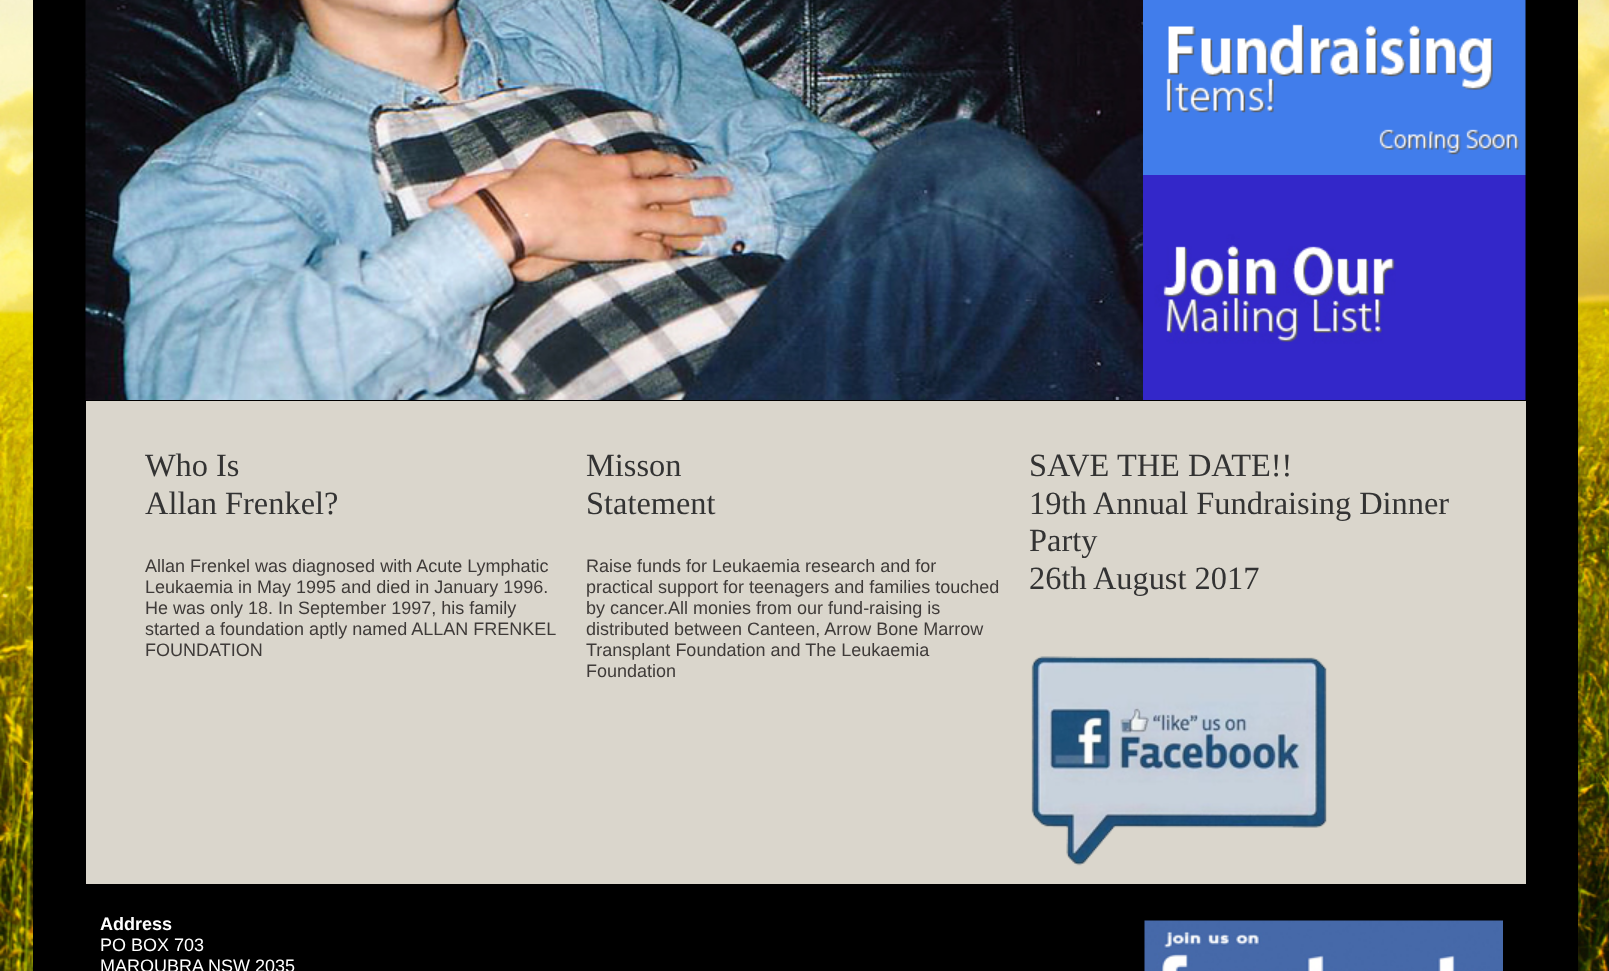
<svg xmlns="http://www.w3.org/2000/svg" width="1609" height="971">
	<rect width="100%" height="100%" fill="#FFFFFF" />
	<image x="0" y="0" width="1609" height="971" href="assets/img1.png" />
	<rect x="33" y="0" width="1545" height="971" fill="#000000" />
	<image x="85" y="0" width="1058" height="400" href="assets/img2.png" />
	<image x="1143" y="0" width="383" height="175" href="assets/img3.png" />
	<image x="1143" y="175" width="383" height="225" href="assets/img4.png" />
	<rect x="86" y="401" width="1440" height="483" fill="#DAD6CC" />
	<g font-family="Liberation Serif" font-size="32.4" fill="#333333">
		<text x="145" y="476">Who Is</text>
		<text x="145" y="514">Allan Frenkel?</text>
	</g>
	<g font-family="Liberation Sans" font-size="18" fill="#3F3B39">
		<text x="145" y="572">Allan Frenkel was diagnosed with Acute Lymphatic</text>
		<text x="145" y="593">Leukaemia in May 1995 and died in January 1996.</text>
		<text x="145" y="614">He was only 18. In September 1997, his family</text>
		<text x="145" y="635">started a foundation aptly named ALLAN FRENKEL</text>
		<text x="145" y="656">FOUNDATION</text>
	</g>
	<g font-family="Liberation Serif" font-size="32.4" fill="#333333">
		<text x="586" y="476">Misson</text>
		<text x="586" y="514">Statement</text>
	</g>
	<g font-family="Liberation Sans" font-size="18" fill="#3F3B39">
		<text x="586" y="572">Raise funds for Leukaemia research and for</text>
		<text x="586" y="593">practical support for teenagers and families touched</text>
		<text x="586" y="614">by cancer.All monies from our fund-raising is</text>
		<text x="586" y="635">distributed between Canteen, Arrow Bone Marrow</text>
		<text x="586" y="656">Transplant Foundation and The Leukaemia</text>
		<text x="586" y="677">Foundation</text>
	</g>
	<g font-family="Liberation Serif" font-size="32.4" fill="#333333">
		<text x="1029" y="476">SAVE THE DATE!!</text>
		<text x="1029" y="514">19th Annual Fundraising Dinner</text>
		<text x="1029" y="551">Party</text>
		<text x="1029" y="589">26th August 2017</text>
	</g>
	<image x="1031" y="656" width="296" height="210" href="assets/img5.png" />
	<text x="100" y="930" font-family="Liberation Sans" font-size="18" font-weight="700" fill="#FFFFFF">Address</text>
	<image x="1144" y="920" width="359" height="51" href="assets/img6.png" />
	<g font-family="Liberation Sans" font-size="18" fill="#FFFFFF">
		<text x="100" y="951">PO BOX 703</text>
		<text x="100" y="972">MAROUBRA NSW 2035</text>
	</g>
</svg>
